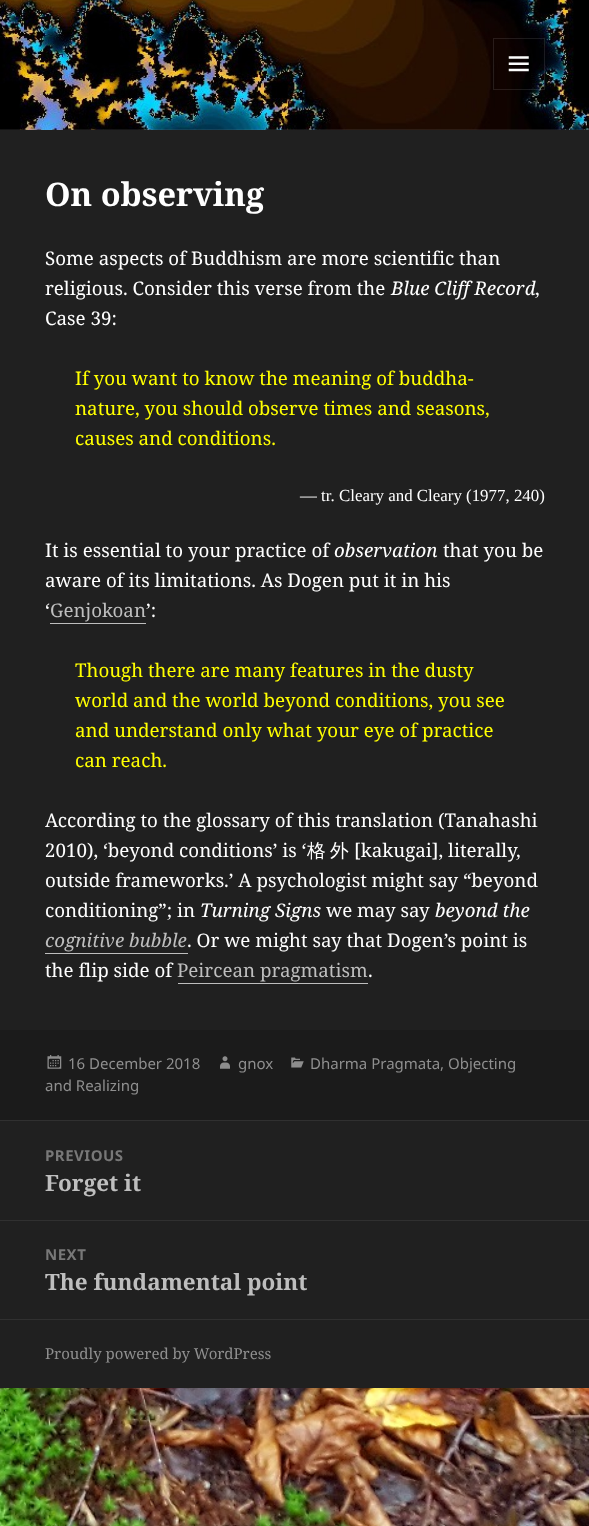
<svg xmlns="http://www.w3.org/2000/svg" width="589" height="1526">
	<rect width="100%" height="100%" fill="#FFFFFF" />
	<image x="0" y="1388" width="589" height="138" href="assets/img1.png" />
	<image x="0" y="0" width="589" height="130" href="assets/img2.png" />
	<rect x="0" y="129" width="589" height="1" fill="#BEBEBE" fill-opacity="0.1" />
	<rect x="493.5" y="38.5" width="51" height="51" fill="none" stroke="#FCFCFC" stroke-opacity="0.1" />
	<image x="508" y="56" width="21" height="16" href="assets/img3.png" />
	<rect x="0" y="130" width="589" height="900" fill="#202020" />
	<text x="45" y="206" font-family="Noto Serif" font-size="32.5" font-weight="700" fill="#FFFFFF">On observing</text>
	<g font-family="Noto Serif" font-size="18.75" fill="#FFFFFF">
		<text x="45" y="265">Some aspects of Buddhism are more scientific than</text>
		<text x="45" y="295">religious. Consider this verse from the</text>
	</g>
	<text x="391" y="295" font-family="Noto Serif" font-size="18.75" font-style="italic" fill="#FFFFFF">Blue Cliff Record</text>
	<g font-family="Noto Serif" font-size="18.75" fill="#FFFFFF">
		<text x="535" y="295">,</text>
		<text x="45" y="325">Case 39:</text>
	</g>
	<g font-family="Noto Serif" font-size="18.75" fill="#FFFF00">
		<text x="75" y="385">If you want to know the meaning of buddha-</text>
		<text x="75" y="415">nature, you should observe times and seasons,</text>
		<text x="75" y="445">causes and conditions.</text>
	</g>
	<text x="300" y="501" font-family="Liberation Serif" font-size="16.9" fill="#FFFFFF">— tr. Cleary and Cleary (1977, 240)</text>
	<text x="45" y="557" font-family="Noto Serif" font-size="18.75" fill="#FFFFFF">It is essential to your practice of</text>
	<text x="334" y="557" font-family="Noto Serif" font-size="18.75" font-style="italic" fill="#FFFFFF">observation</text>
	<g font-family="Noto Serif" font-size="18.75" fill="#FFFFFF">
		<text x="443" y="557">that you be</text>
		<text x="45" y="587">aware of its limitations. As Dogen put it in his</text>
		<text x="45" y="617">‘</text>
	</g>
	<text x="50" y="617" font-family="Noto Serif" font-size="18.75" fill="#BEBEBE">Genjokoan</text>
	<rect x="50" y="623" width="96" height="1" fill="#BEBEBE" />
	<text x="146" y="617" font-family="Noto Serif" font-size="18.75" fill="#FFFFFF">’:</text>
	<g font-family="Noto Serif" font-size="18.75" fill="#FFFF00">
		<text x="75" y="677">Though there are many features in the dusty</text>
		<text x="75" y="707">world and the world beyond conditions, you see</text>
		<text x="75" y="737">and understand only what your eye of practice</text>
		<text x="75" y="767">can reach.</text>
	</g>
	<g font-family="Noto Serif" font-size="18.75" fill="#FFFFFF">
		<text x="45" y="827">According to the glossary of this translation (Tanahashi</text>
		<text x="45" y="857">2010), ‘beyond conditions’ is ‘</text>
	</g>
	<g font-family="WenQuanYi Zen Hei" font-size="18.75" font-weight="500" fill="#FFFFFF">
		<text x="307" y="857">格</text>
		<text x="330" y="857">外</text>
	</g>
	<g font-family="Noto Serif" font-size="18.75" fill="#FFFFFF">
		<text x="354" y="857">[kakugai], literally,</text>
		<text x="45" y="887">outside frameworks.’ A psychologist might say “beyond</text>
		<text x="45" y="917">conditioning”; in</text>
	</g>
	<text x="200" y="917" font-family="Noto Serif" font-size="18.75" font-style="italic" fill="#FFFFFF">Turning Signs</text>
	<text x="326" y="917" font-family="Noto Serif" font-size="18.75" fill="#FFFFFF">we may say</text>
	<text x="435" y="917" font-family="Noto Serif" font-size="18.75" font-style="italic" fill="#FFFFFF">beyond the</text>
	<text x="45" y="947" font-family="Noto Serif" font-size="18.75" font-style="italic" fill="#BEBEBE">cognitive bubble</text>
	<rect x="45" y="953" width="143" height="1" fill="#BEBEBE" />
	<g font-family="Noto Serif" font-size="18.75" fill="#FFFFFF">
		<text x="187" y="947">. Or we might say that Dogen’s point is</text>
		<text x="45" y="977">the flip side of</text>
	</g>
	<text x="177" y="977" font-family="Noto Serif" font-size="18.75" fill="#BEBEBE">Peircean pragmatism</text>
	<rect x="178" y="983" width="190" height="1" fill="#BEBEBE" />
	<text x="368" y="977" font-family="Noto Serif" font-size="18.75" fill="#FFFFFF">.</text>
	<rect x="0" y="1030" width="589" height="90" fill="#1B1B1B" />
	<image x="291" y="1057" width="13" height="11" href="assets/img4.png" />
	<g font-family="Noto Sans" font-size="15" fill="#8F8F8F">
		<text x="310" y="1069">Dharma Pragmata, Objecting</text>
		<text x="45" y="1091">and Realizing</text>
	</g>
	<image x="47" y="1055" width="15" height="14" href="assets/img5.png" />
	<text x="68" y="1069" font-family="Noto Sans" font-size="15" fill="#8F8F8F">16 December 2018</text>
	<image x="220" y="1056" width="10" height="13" href="assets/img6.png" />
	<text x="238" y="1069" font-family="Noto Sans" font-size="15" fill="#8F8F8F">gnox</text>
	<rect x="0" y="1121" width="589" height="198" fill="#202020" />
	<rect x="0" y="1120" width="589" height="1" fill="#303030" />
	<text x="45" y="1161" font-family="Noto Sans" font-size="15" font-weight="700" letter-spacing="0.5" fill="#787878">PREVIOUS</text>
	<text x="45" y="1191" font-family="Noto Serif" font-size="22.5" font-weight="700" fill="#BEBEBE">Forget it</text>
	<rect x="0" y="1220" width="589" height="1" fill="#303030" />
	<text x="45" y="1260" font-family="Noto Sans" font-size="15" font-weight="700" letter-spacing="0.5" fill="#787878">NEXT</text>
	<text x="45" y="1290" font-family="Noto Serif" font-size="22.5" font-weight="700" fill="#BEBEBE">The fundamental point</text>
	<rect x="0" y="1320" width="589" height="68" fill="#202020" />
	<rect x="0" y="1319" width="589" height="1" fill="#303030" />
	<text x="45" y="1359" font-family="Noto Serif" font-size="15" fill="#8F8F8F">Proudly powered by WordPress</text>
</svg>
